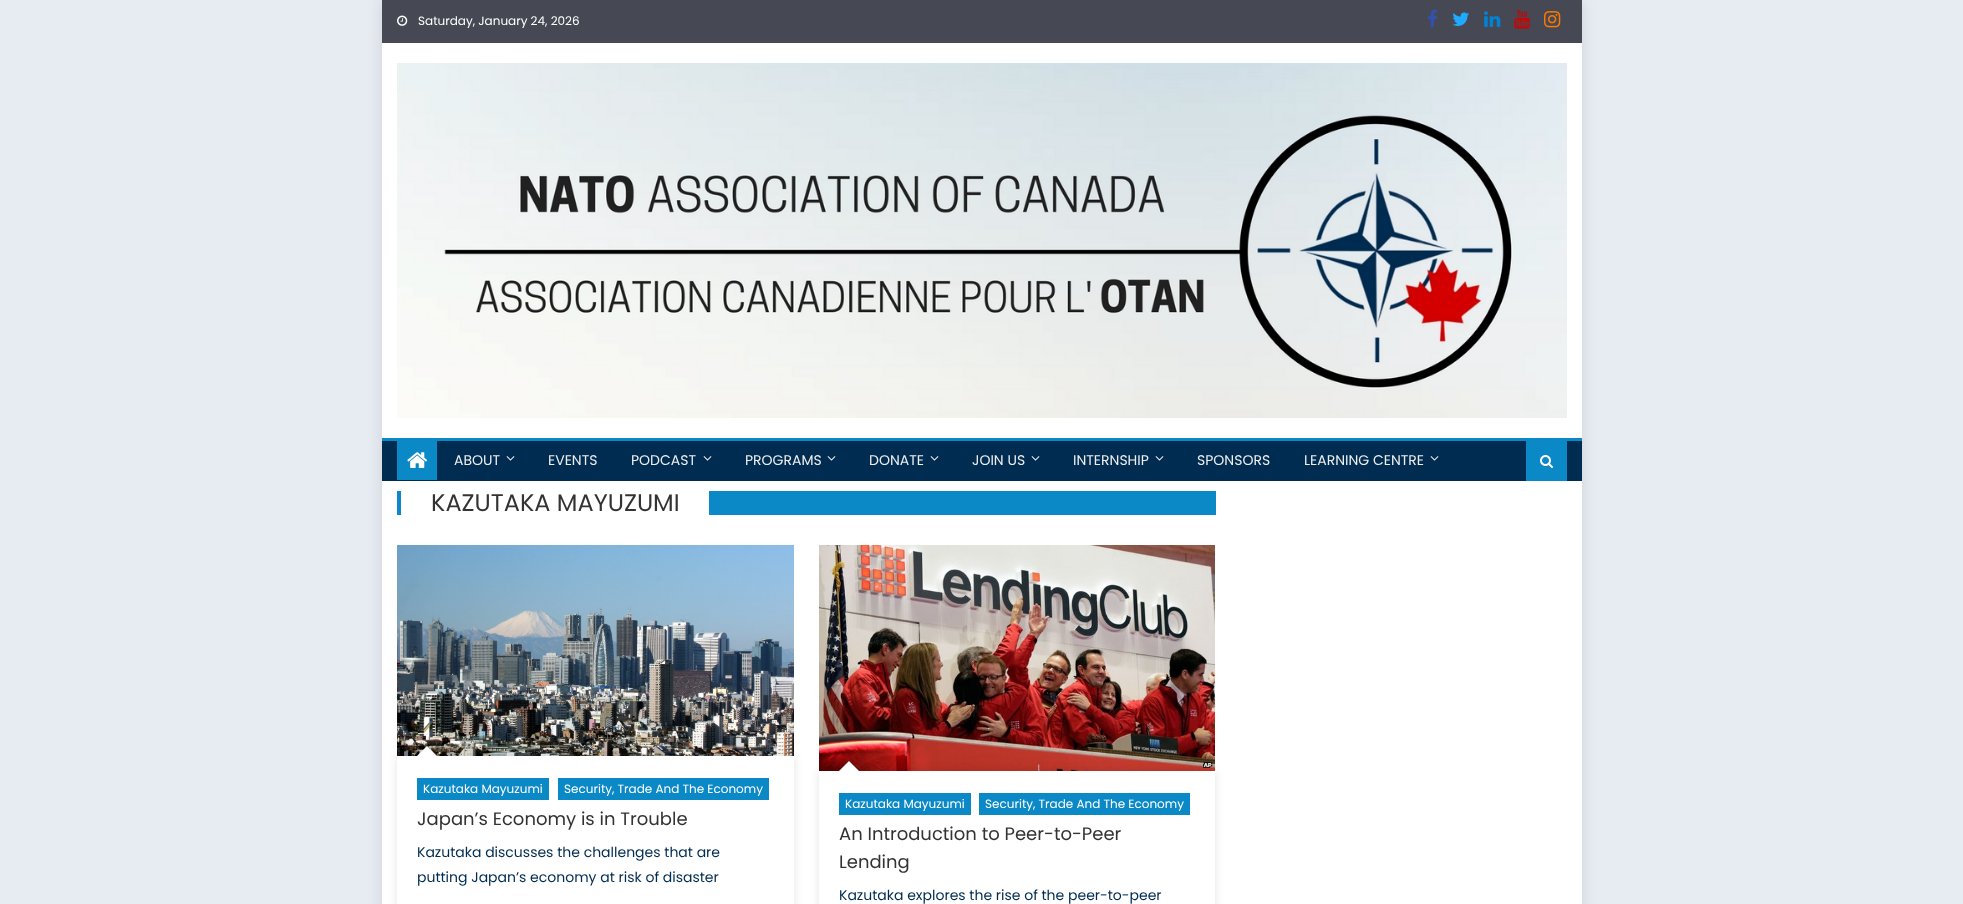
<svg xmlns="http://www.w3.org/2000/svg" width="1963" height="904">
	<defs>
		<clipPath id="clip1"><path d="M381 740H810V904H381ZM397 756H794V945H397Z" clip-rule="evenodd" /></clipPath>
		<clipPath id="clip2"><path d="M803 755H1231V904H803ZM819 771H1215V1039H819Z" clip-rule="evenodd" /></clipPath>
	</defs>
	<rect width="100%" height="100%" fill="#E6ECF2" />
	<rect x="382" y="0" width="1200" height="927" fill="#000000" fill-opacity="0.1" filter="blur(7.5px)" />
	<rect x="382" y="43" width="1200" height="861" fill="#FFFFFF" />
	<rect x="382" y="0" width="1200" height="43" fill="#464954" />
	<image x="397" y="15" width="11" height="11" href="assets/img1.png" />
	<text x="418" y="25" font-family="Poppins" font-size="12" fill="#FFFFFF">Saturday, January 24, 2026</text>
	<image x="1428" y="9" width="10" height="19" href="assets/img2.png" />
	<image x="1452" y="12" width="17" height="14" href="assets/img3.png" />
	<image x="1484" y="11" width="17" height="16" href="assets/img4.png" />
	<image x="1514" y="9" width="16" height="20" href="assets/img5.png" />
	<image x="1544" y="11" width="17" height="17" href="assets/img6.png" />
	<image x="397" y="63" width="1170" height="355" href="assets/img7.png" />
	<rect x="382" y="441" width="1200" height="40" fill="#002C51" />
	<rect x="382" y="438" width="1200" height="3" fill="#0B89C6" />
	<rect x="397" y="441" width="40" height="39" fill="#0B89C6" />
	<image x="407" y="452" width="21" height="16" href="assets/img8.png" />
	<text x="454" y="465" font-family="Poppins" font-size="14" fill="#EEEEEE">ABOUT</text>
	<image x="506" y="456" width="9" height="5" href="assets/img9.png" />
	<g font-family="Poppins" font-size="14" fill="#EEEEEE">
		<text x="548" y="465">EVENTS</text>
		<text x="631" y="465">PODCAST</text>
	</g>
	<image x="703" y="456" width="9" height="5" href="assets/img9.png" />
	<text x="745" y="465" font-family="Poppins" font-size="14" fill="#EEEEEE">PROGRAMS</text>
	<image x="827" y="456" width="9" height="5" href="assets/img9.png" />
	<text x="869" y="465" font-family="Poppins" font-size="14" fill="#EEEEEE">DONATE</text>
	<image x="930" y="456" width="9" height="5" href="assets/img9.png" />
	<text x="972" y="465" font-family="Poppins" font-size="14" fill="#EEEEEE">JOIN US</text>
	<image x="1031" y="456" width="9" height="5" href="assets/img9.png" />
	<text x="1073" y="465" font-family="Poppins" font-size="14" fill="#EEEEEE">INTERNSHIP</text>
	<image x="1155" y="456" width="9" height="5" href="assets/img9.png" />
	<g font-family="Poppins" font-size="14" fill="#EEEEEE">
		<text x="1197" y="465">SPONSORS</text>
		<text x="1304" y="465">LEARNING CENTRE</text>
	</g>
	<image x="1430" y="456" width="9" height="5" href="assets/img9.png" />
	<rect x="1526" y="441" width="41" height="40" fill="#0B89C6" />
	<image x="1540" y="455" width="13" height="13" href="assets/img10.png" />
	<rect x="397" y="491" width="819" height="24" fill="#0B89C6" />
	<rect x="401" y="491" width="308" height="24" fill="#FFFFFF" />
	<text x="431" y="511" font-family="Poppins" font-size="24" fill="#333333">KAZUTAKA MAYUZUMI</text>
	<image x="397" y="545" width="397" height="211" href="assets/img11.png" />
	<g clip-path="url(#clip1)">
		<rect x="397" y="756" width="397" height="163" fill="#000000" fill-opacity="0.1" filter="blur(5px)" />
	</g>
	<path d="M437 756H417L427 746Z" fill="#FFFFFF" />
	<rect x="417" y="778" width="132" height="22" fill="#0B89C6" />
	<text x="423" y="793" font-family="Poppins" font-size="12" fill="#FFFFFF">Kazutaka Mayuzumi</text>
	<rect x="558" y="778" width="211" height="22" fill="#0B89C6" />
	<text x="564" y="793" font-family="Poppins" font-size="12" fill="#FFFFFF">Security, Trade And The Economy</text>
	<text x="417" y="825" font-family="Poppins" font-size="18" fill="#333333">Japan’s Economy is in Trouble</text>
	<g font-family="Poppins" font-size="14" fill="#002C51">
		<text x="417" y="857">Kazutaka discusses the challenges that are</text>
		<text x="417" y="882">putting Japan’s economy at risk of disaster</text>
	</g>
	<image x="819" y="545" width="396" height="226" href="assets/img12.png" />
	<g clip-path="url(#clip2)">
		<rect x="819" y="771" width="396" height="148" fill="#000000" fill-opacity="0.1" filter="blur(5px)" />
	</g>
	<path d="M859 771H839L849 761Z" fill="#FFFFFF" />
	<rect x="839" y="793" width="132" height="22" fill="#0B89C6" />
	<text x="845" y="808" font-family="Poppins" font-size="12" fill="#FFFFFF">Kazutaka Mayuzumi</text>
	<rect x="979" y="793" width="211" height="22" fill="#0B89C6" />
	<text x="985" y="808" font-family="Poppins" font-size="12" fill="#FFFFFF">Security, Trade And The Economy</text>
	<g font-family="Poppins" font-size="18" fill="#333333">
		<text x="839" y="840">An Introduction to Peer-to-Peer</text>
		<text x="839" y="868">Lending</text>
	</g>
	<text x="839" y="900" font-family="Poppins" font-size="14" fill="#002C51">Kazutaka explores the rise of the peer-to-peer</text>
</svg>
